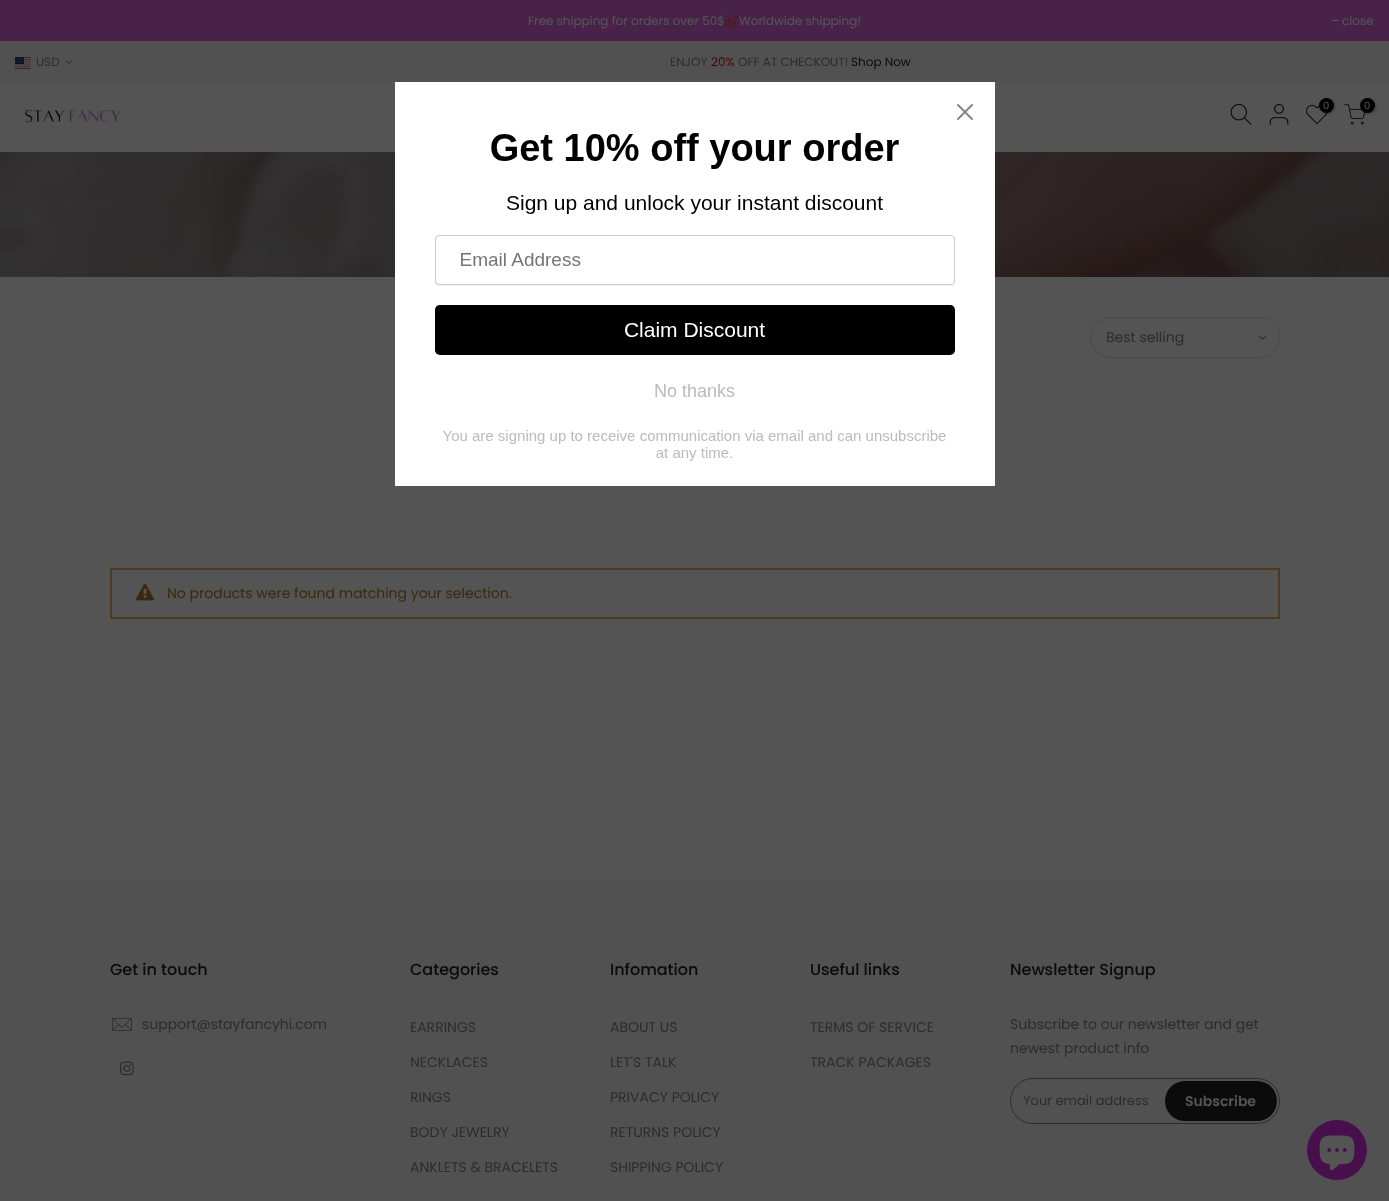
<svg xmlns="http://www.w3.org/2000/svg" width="1389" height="1201">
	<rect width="100%" height="100%" fill="#FFFFFF" />
	<rect x="0" y="0" width="1389" height="41" fill="#DC67E1" />
	<text x="528" y="25" font-family="Poppins" font-size="12" fill="#FFFFFF">Free shipping for orders over 50$</text>
	<text x="724" y="25" font-family="Noto Color Emoji" font-size="12" fill="#FFFFFF">💕</text>
	<text x="739" y="25" font-family="Poppins" font-size="12" fill="#FFFFFF">Worldwide shipping!</text>
	<rect x="1332" y="20" width="7" height="1" fill="#FFFFFF" />
	<text x="1342" y="25" font-family="Poppins" font-size="12" fill="#FFFFFF">close</text>
	<rect x="0" y="41" width="1389" height="41" fill="#F6F6F8" />
	<image x="15" y="57" width="16" height="12" href="assets/img2.png" />
	<text x="36" y="66" font-family="Poppins" font-size="12" fill="#878787">USD</text>
	<image x="65" y="60" width="8" height="4" href="assets/img3.png" />
	<text x="670" y="66" font-family="Poppins" font-size="12" fill="#878787">ENJOY</text>
	<text x="711" y="66" font-family="Poppins" font-size="12" fill="#EC0101">20%</text>
	<text x="738" y="66" font-family="Poppins" font-size="12" fill="#878787">OFF AT CHECKOUT!</text>
	<text x="851" y="66" font-family="Poppins" font-size="12" fill="#222222">Shop Now</text>
	<image x="1230" y="103" width="22" height="22" href="assets/img4.png" />
	<image x="1269" y="103" width="20" height="22" href="assets/img5.png" />
	<image x="1306" y="104" width="22" height="20" href="assets/img6.png" />
	<rect x="1320" y="99" width="15" height="15" rx="7.5" fill="#000000" fill-opacity="0.3" filter="blur(1.5px)" />
	<circle cx="1326.5" cy="105.5" r="7.5" fill="#000000" />
	<text x="1323" y="109" font-family="Poppins" font-size="10" fill="#FFFFFF">0</text>
	<image x="1344" y="104" width="21" height="21" href="assets/img7.png" />
	<rect x="1361" y="99" width="15" height="15" rx="7.5" fill="#000000" fill-opacity="0.3" filter="blur(1.5px)" />
	<circle cx="1367.5" cy="105.5" r="7.5" fill="#000000" />
	<text x="1364" y="109" font-family="Poppins" font-size="10" fill="#FFFFFF">0</text>
	<image x="25" y="110" width="95" height="12" href="assets/img8.png" />
	<image x="0" y="152" width="1389" height="125" href="assets/img9.png" />
	<rect x="1090.5" y="317.5" width="189" height="40" rx="20" fill="none" stroke="#DDDDDD" />
	<text x="1106" y="342" font-family="Poppins" font-size="14" fill="#878787">Best selling</text>
	<image x="1258" y="335" width="9" height="5" href="assets/img10.png" />
	<rect x="111" y="569" width="1168" height="49" fill="none" stroke="#E0B252" stroke-width="2" />
	<image x="136" y="583" width="18" height="18" href="assets/img11.png" />
	<text x="167" y="598" font-family="Poppins" font-size="14" fill="#AF7D27">No products were found matching your selection.</text>
	<rect x="0" y="879" width="1389" height="322" fill="#F6F6F8" />
	<text x="110" y="975" font-family="Poppins" font-size="16" font-weight="500" fill="#222222">Get in touch</text>
	<image x="112" y="1018" width="20" height="13" href="assets/img12.png" />
	<text x="142" y="1029" font-family="Poppins" font-size="14" fill="#878787">support@stayfancyhi.com</text>
	<image x="120" y="1061" width="14" height="15" href="assets/img13.png" />
	<text x="410" y="975" font-family="Poppins" font-size="16" font-weight="500" fill="#222222">Categories</text>
	<g font-family="Poppins" font-size="14" fill="#878787">
		<text x="410" y="1032">EARRINGS</text>
		<text x="410" y="1067">NECKLACES</text>
		<text x="410" y="1102">RINGS</text>
		<text x="410" y="1137">BODY JEWELRY</text>
		<text x="410" y="1172">ANKLETS &amp; BRACELETS</text>
	</g>
	<text x="610" y="975" font-family="Poppins" font-size="16" font-weight="500" fill="#222222">Infomation</text>
	<g font-family="Poppins" font-size="14" fill="#878787">
		<text x="610" y="1032">ABOUT US</text>
		<text x="610" y="1067">LET'S TALK</text>
		<text x="610" y="1102">PRIVACY POLICY</text>
		<text x="610" y="1137">RETURNS POLICY</text>
		<text x="610" y="1172">SHIPPING POLICY</text>
	</g>
	<text x="810" y="975" font-family="Poppins" font-size="16" font-weight="500" fill="#222222">Useful links</text>
	<g font-family="Poppins" font-size="14" fill="#878787">
		<text x="810" y="1032">TERMS OF SERVICE</text>
		<text x="810" y="1067">TRACK PACKAGES</text>
	</g>
	<text x="1010" y="975" font-family="Poppins" font-size="16" font-weight="500" fill="#222222">Newsletter Signup</text>
	<g font-family="Poppins" font-size="14" fill="#878787">
		<text x="1010" y="1029">Subscribe to our newsletter and get</text>
		<text x="1010" y="1053">newest product info</text>
	</g>
	<rect x="1010.5" y="1078.5" width="269" height="45" rx="22.5" fill="none" stroke="#878787" />
	<text x="1023" y="1105" font-family="Poppins" font-size="13" fill="#878787">Your email address</text>
	<rect x="1165" y="1081" width="112" height="40" rx="20" fill="#222222" />
	<text x="1185" y="1106" font-family="Poppins" font-size="14" font-weight="600" fill="#FFFFFF">Subscribe</text>
	<circle cx="1337" cy="1150" r="30" fill="#DA2EEA" />
	<image x="1319" y="1135" width="36" height="36" href="assets/img14.png" />
	<image x="0" y="0" width="1389" height="1201" href="assets/img1.png" />
</svg>
